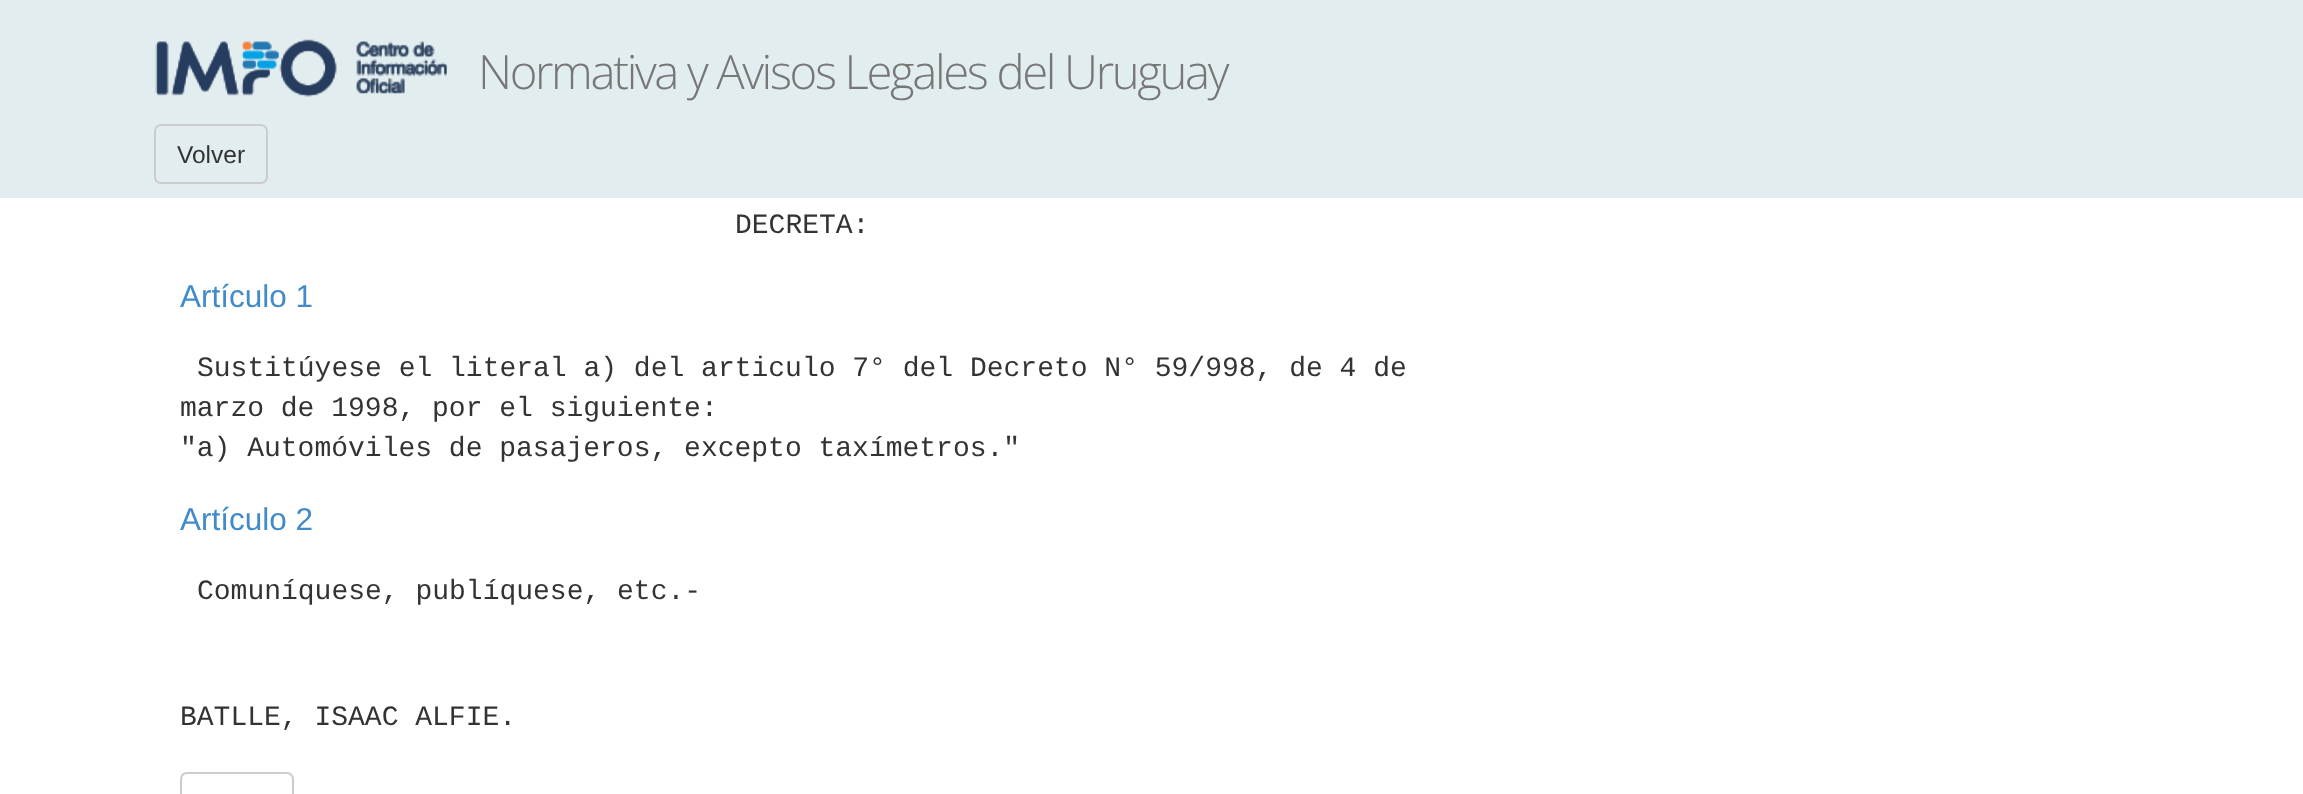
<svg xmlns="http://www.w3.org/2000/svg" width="2303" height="794">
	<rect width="100%" height="100%" fill="#FFFFFF" />
	<rect x="0" y="0" width="2303" height="198" fill="#E2EDF0" />
	<image x="155" y="39" width="292" height="58" href="assets/img1.png" />
	<image x="155" y="39" width="292" height="58" href="assets/img2.png" />
	<text x="478" y="89" font-family="Open Sans" font-size="47.25" font-weight="300" letter-spacing="-2.35" fill="#777777">Normativa y Avisos Legales del Uruguay</text>
	<rect x="155" y="125" width="112" height="58" rx="6" fill="none" stroke="#CCCCCC" stroke-width="2" />
	<text x="177" y="163" font-family="Liberation Sans" font-size="24.5" fill="#333333">Volver</text>
	<text x="735" y="233" font-family="Liberation Mono" font-size="28" fill="#333333">DECRETA:</text>
	<text x="180" y="307" font-family="Liberation Sans" font-size="31.5" fill="#428BCA">Artículo 1</text>
	<g font-family="Liberation Mono" font-size="28" fill="#333333">
		<text x="197" y="376">Sustitúyese el literal a) del articulo 7° del Decreto N° 59/998, de 4 de</text>
		<text x="180" y="416">marzo de 1998, por el siguiente:</text>
		<text x="180" y="456">"a) Automóviles de pasajeros, excepto taxímetros."</text>
	</g>
	<text x="180" y="530" font-family="Liberation Sans" font-size="31.5" fill="#428BCA">Artículo 2</text>
	<g font-family="Liberation Mono" font-size="28" fill="#333333">
		<text x="197" y="599">Comuníquese, publíquese, etc.-</text>
		<text x="180" y="725">BATLLE, ISAAC ALFIE.</text>
	</g>
	<rect x="181" y="773" width="112" height="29" rx="6" fill="none" stroke="#CCCCCC" stroke-width="2" />
</svg>
